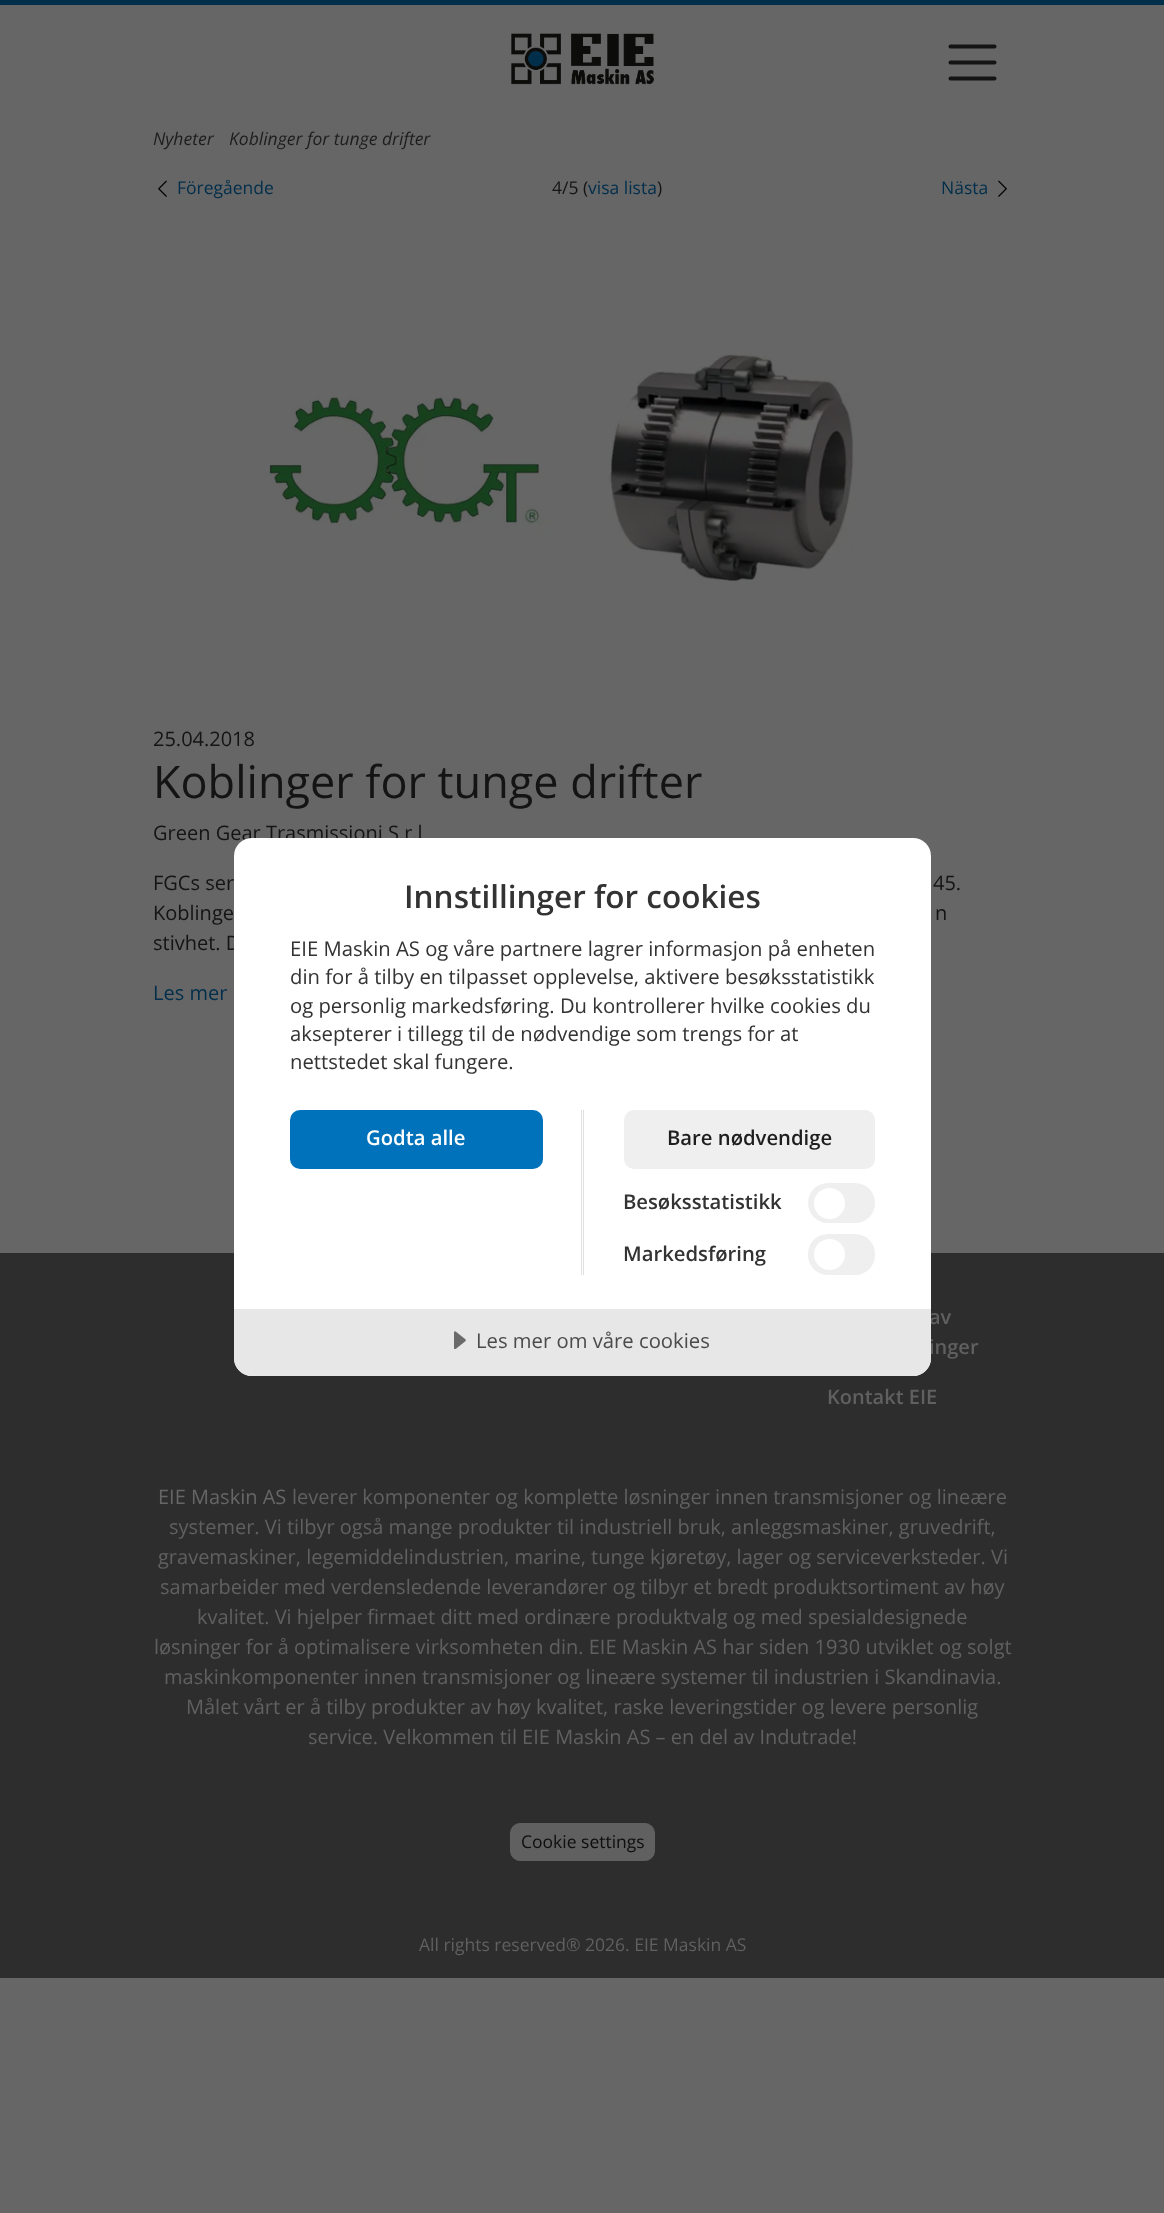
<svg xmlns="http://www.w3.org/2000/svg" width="1164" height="2213">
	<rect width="100%" height="100%" fill="#666666" />
	<rect x="0" y="0" width="1164" height="5" fill="#002E4B" />
	<image x="511" y="33" width="143" height="52" href="assets/img1.png" />
	<path d="M950.5 46.5H994.5M950.5 62.5H994.5M950.5 78.5H994.5" fill="none" stroke="#141414" stroke-width="4" stroke-linecap="round" />
	<g font-family="Open Sans" font-size="17.5" font-style="italic" fill="#1E1E1E">
		<text x="153" y="145">Nyheter</text>
		<text x="229" y="145">Koblinger for tunge drifter</text>
	</g>
	<image x="158" y="180" width="9" height="17" href="assets/img2.png" />
	<text x="177" y="194" font-family="Open Sans" font-size="17.5" fill="#002E4B">Föregående</text>
	<text x="552" y="194" font-family="Open Sans" font-size="17.5" fill="#141414">4/5 (</text>
	<text x="588" y="194" font-family="Open Sans" font-size="17.5" fill="#002E4B">visa lista</text>
	<text x="657" y="194" font-family="Open Sans" font-size="17.5" fill="#141414">)</text>
	<text x="941" y="194" font-family="Open Sans" font-size="17.5" fill="#002E4B">Nästa</text>
	<image x="998" y="180" width="9" height="17" href="assets/img3.png" />
	<image x="268" y="354" width="586" height="227" href="assets/img4.png" />
	<text x="153" y="746" font-family="Open Sans" font-size="20" fill="#141414">25.04.2018</text>
	<text x="153" y="798" font-family="Open Sans" font-size="45" fill="#141414">Koblinger for tunge drifter</text>
	<g font-family="Open Sans" font-size="20" fill="#141414">
		<text x="153" y="840">Green Gear Trasmissioni S.r.l</text>
		<text x="153" y="890">FGCs ser</text>
		<text x="933" y="890">45.</text>
		<text x="153" y="920">Koblinge</text>
		<text x="935" y="920">n</text>
		<text x="153" y="950">stivhet. D</text>
	</g>
	<text x="153" y="1000" font-family="Open Sans" font-size="20" fill="#002E4B">Les mer</text>
	<rect x="0" y="1253" width="1164" height="725" fill="#2D2D2D" />
	<g font-family="Open Sans" font-size="20" font-weight="600" fill="#606060">
		<text x="929" y="1324">av</text>
		<text x="929" y="1354">inger</text>
		<text x="827" y="1404">Kontakt EIE</text>
	</g>
	<text x="158" y="1504" font-family="Open Sans" font-size="20" fill="#666666">EIE Maskin AS</text>
	<g font-family="Open Sans" font-size="20" fill="#606060">
		<text x="292" y="1504">leverer komponenter og komplette løsninger innen transmisjoner og lineære</text>
		<text x="169" y="1534">systemer. Vi tilbyr også mange produkter til industriell bruk, anleggsmaskiner, gruvedrift,</text>
		<text x="158" y="1564">gravemaskiner, legemiddelindustrien, marine, tunge kjøretøy, lager og serviceverksteder. Vi</text>
		<text x="160" y="1594">samarbeider med verdensledende leverandører og tilbyr et bredt produktsortiment av høy</text>
		<text x="197" y="1624">kvalitet. Vi hjelper firmaet ditt med ordinære produktvalg og med spesialdesignede</text>
		<text x="154" y="1654">løsninger for å optimalisere virksomheten din. EIE Maskin AS har siden 1930 utviklet og solgt</text>
		<text x="164" y="1684">maskinkomponenter innen transmisjoner og lineære systemer til industrien i Skandinavia.</text>
		<text x="186" y="1714">Målet vårt er å tilby produkter av høy kvalitet, raske leveringstider og levere personlig</text>
		<text x="308" y="1744">service. Velkommen til EIE Maskin AS – en del av Indutrade!</text>
	</g>
	<rect x="510.5" y="1823.5" width="144" height="37" rx="9.5" fill="#606060" stroke="#606060" />
	<text x="521" y="1848" font-family="Open Sans" font-size="17.5" fill="#0E0E0E">Cookie settings</text>
	<text x="419" y="1951" font-family="Open Sans" font-size="17.5" fill="#606060">All rights reserved® 2026. EIE Maskin AS</text>
	<rect x="234" y="838" width="697" height="538" rx="18" fill="#FFFFFF" />
	<text x="404" y="908" font-family="Open Sans" font-size="31.5" font-weight="600" fill="#333333">Innstillinger for cookies</text>
	<g font-family="Open Sans" font-size="20.25" fill="#333333">
		<text x="290" y="956">EIE Maskin AS og våre partnere lagrer informasjon på enheten</text>
		<text x="290" y="984">din for å tilby en tilpasset opplevelse, aktivere besøksstatistikk</text>
		<text x="290" y="1013">og personlig markedsføring. Du kontrollerer hvilke cookies du</text>
		<text x="290" y="1041">aksepterer i tillegg til de nødvendige som trengs for at</text>
		<text x="290" y="1069">nettstedet skal fungere.</text>
	</g>
	<rect x="581" y="1110" width="1" height="165" fill="#E0E0E0" />
	<rect x="290" y="1110" width="253" height="59" rx="10" fill="#0072BB" />
	<text x="366" y="1145" font-family="Open Sans" font-size="20.25" font-weight="600" fill="#FFFFFF">Godta alle</text>
	<rect x="583" y="1110" width="1" height="165" fill="#E0E0E0" />
	<rect x="624" y="1110" width="251" height="59" rx="10" fill="#EFEFEF" />
	<text x="667" y="1145" font-family="Open Sans" font-size="20.25" font-weight="600" fill="#1E1E1E">Bare nødvendige</text>
	<text x="623" y="1209" font-family="Open Sans" font-size="20.25" font-weight="600" fill="#333333">Besøksstatistikk</text>
	<rect x="808" y="1183" width="67" height="40" rx="20" fill="#EFEFEF" />
	<circle cx="829.5" cy="1203.5" r="15.5" fill="#FFFFFF" />
	<text x="623" y="1261" font-family="Open Sans" font-size="20.25" font-weight="600" fill="#333333">Markedsføring</text>
	<rect x="808" y="1234" width="67" height="41" rx="20" fill="#EFEFEF" />
	<circle cx="829.5" cy="1254.5" r="15.5" fill="#FFFFFF" />
	<path d="M234 1309H931V1358C931 1368 923 1376 913 1376H252C242 1376 234 1368 234 1358Z" fill="#E7E7E7" />
	<image x="454" y="1331" width="12" height="18" href="assets/img5.png" />
	<text x="476" y="1348" font-family="Open Sans" font-size="20.25" fill="#4B4B4B">Les mer om våre cookies</text>
</svg>
